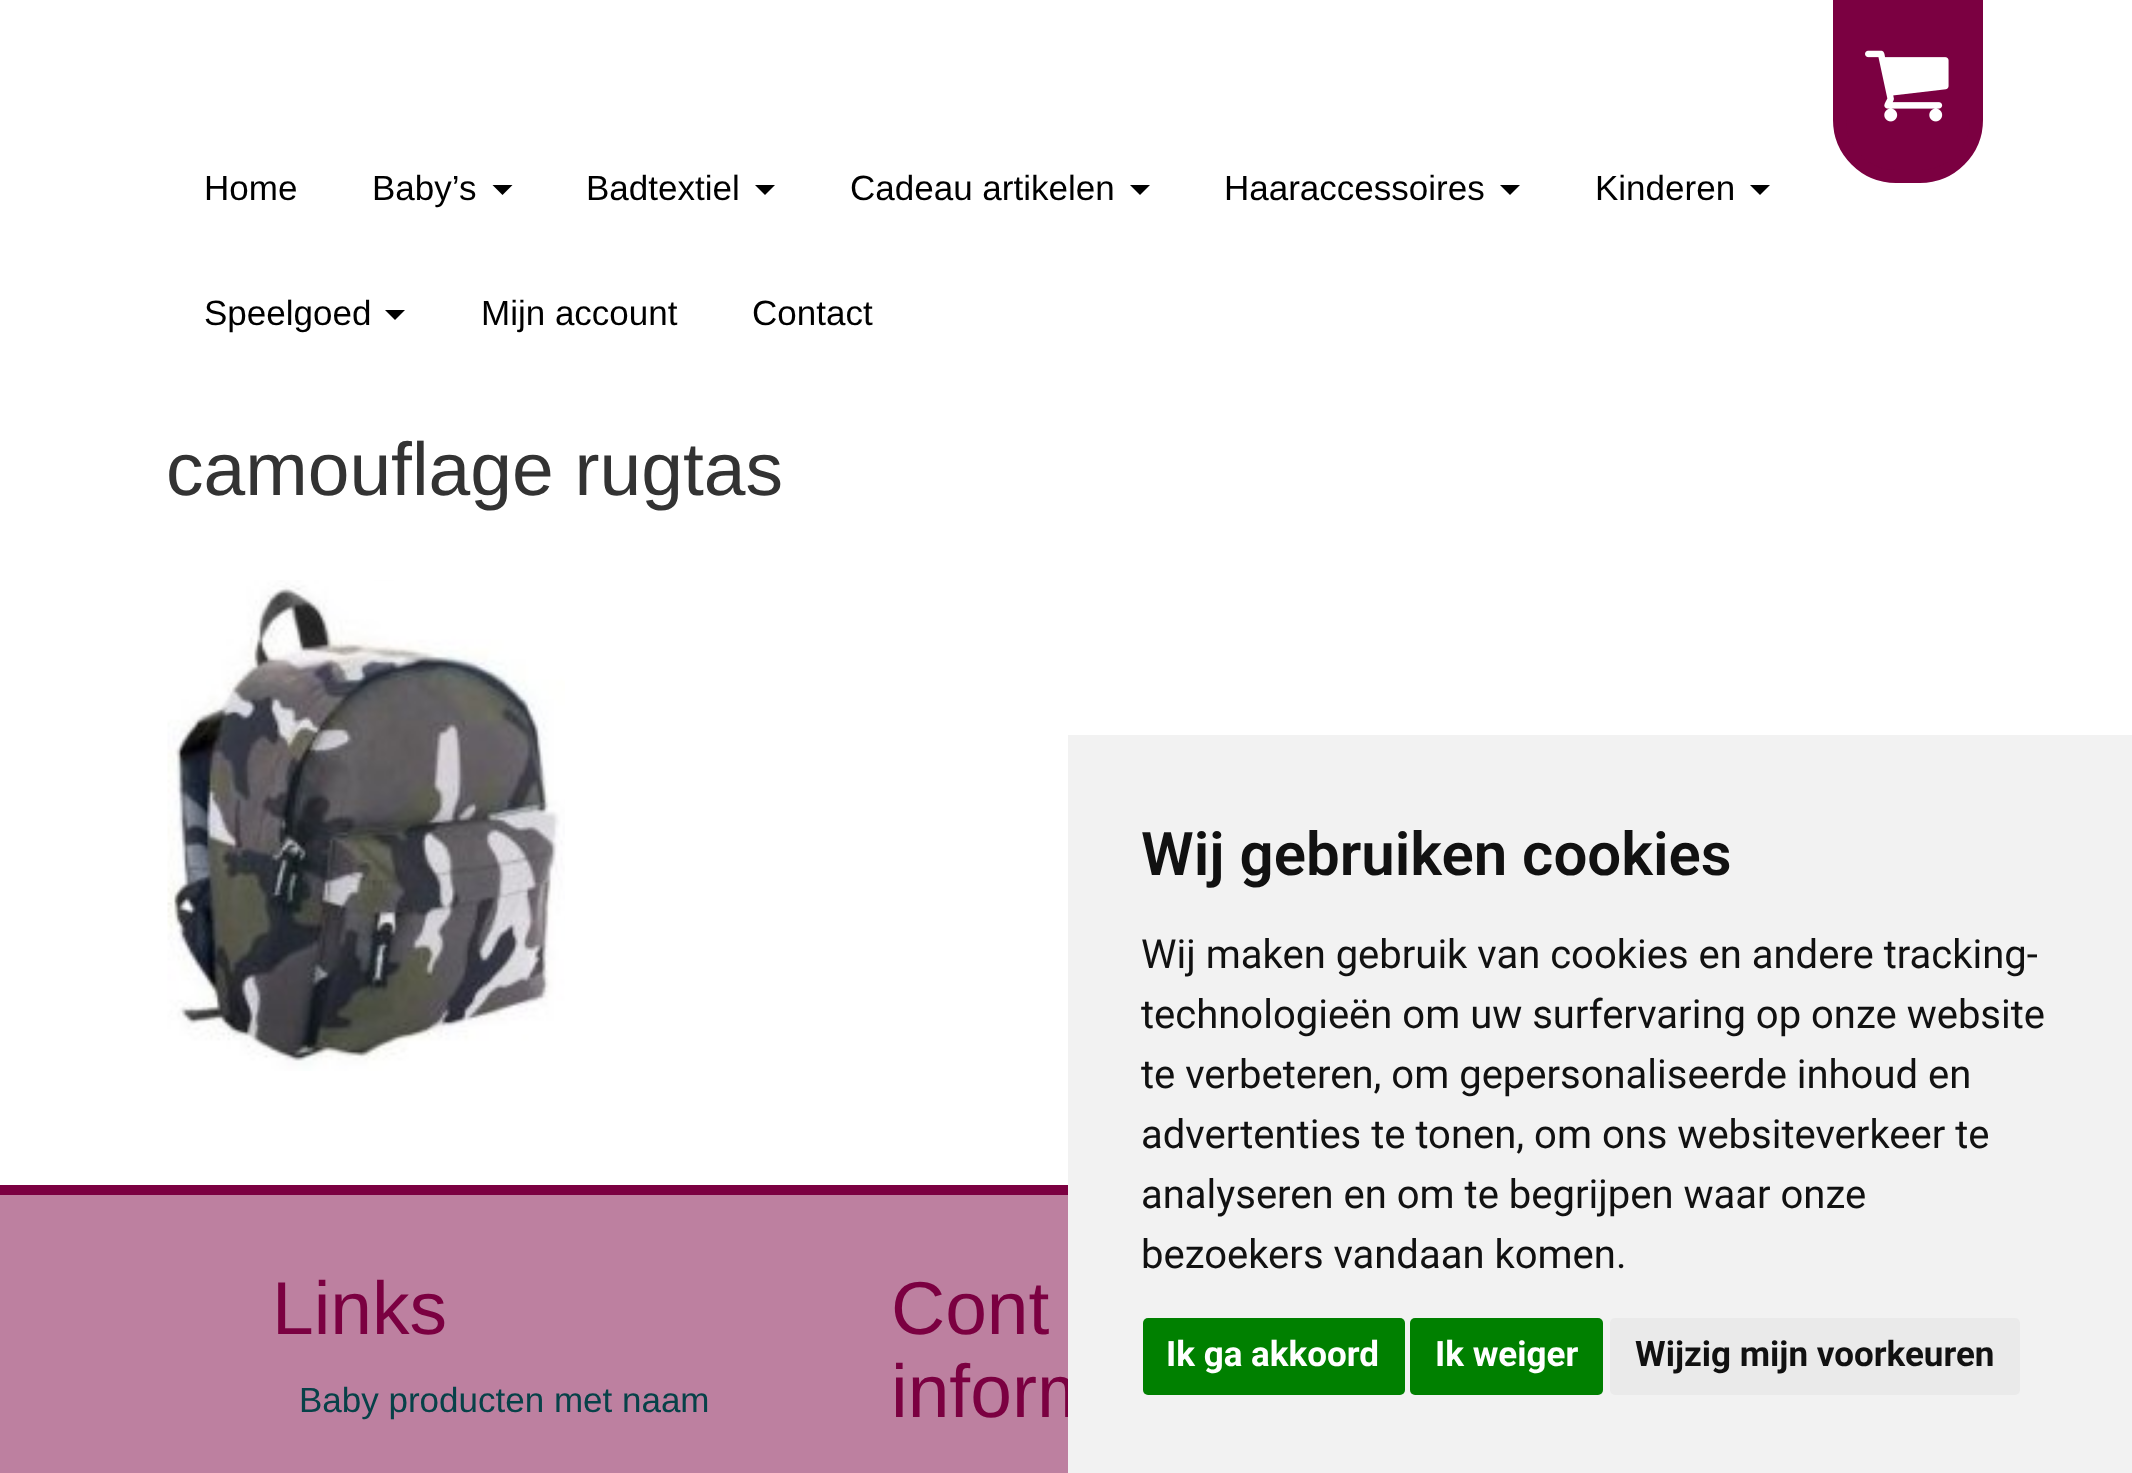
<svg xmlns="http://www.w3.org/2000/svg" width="2132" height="1473">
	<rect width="100%" height="100%" fill="#FFFFFF" />
	<path d="M1839.5 6.5H1976.5V120C1976.5 151 1951 176.5 1920 176.5H1896C1865 176.5 1839.5 151 1839.5 120Z" fill="#7B0041" stroke="#7B0041" stroke-width="13" />
	<image x="1865" y="50" width="84" height="72" href="assets/img1.png" />
	<g font-family="Liberation Sans" font-size="35" fill="#000000">
		<text x="204" y="200">Home</text>
		<text x="372" y="200">Baby’s</text>
	</g>
	<path d="M492.5 185H512.5L502.5 195Z" fill="#000000" />
	<text x="586" y="200" font-family="Liberation Sans" font-size="35" fill="#000000">Badtextiel</text>
	<path d="M755 185H775L765 195Z" fill="#000000" />
	<text x="850" y="200" font-family="Liberation Sans" font-size="35" fill="#000000">Cadeau artikelen</text>
	<path d="M1130 185H1150L1140 195Z" fill="#000000" />
	<text x="1224" y="200" font-family="Liberation Sans" font-size="35" fill="#000000">Haaraccessoires</text>
	<path d="M1500 185H1520L1510 195Z" fill="#000000" />
	<text x="1595" y="200" font-family="Liberation Sans" font-size="35" fill="#000000">Kinderen</text>
	<path d="M1750 185H1770L1760 195Z" fill="#000000" />
	<text x="204" y="325" font-family="Liberation Sans" font-size="35" fill="#000000">Speelgoed</text>
	<path d="M385 310H405L395 320Z" fill="#000000" />
	<g font-family="Liberation Sans" font-size="35" fill="#000000">
		<text x="481" y="325">Mijn account</text>
		<text x="752" y="325">Contact</text>
	</g>
	<text x="166" y="495" font-family="Liberation Sans" font-size="75" fill="#333333">camouflage rugtas</text>
	<image x="167" y="580" width="398" height="491" href="assets/img2.png" />
	<rect x="0" y="1185" width="1068" height="10" fill="#7B0041" />
	<rect x="0" y="1195" width="1068" height="278" fill="#BD80A0" />
	<text x="272" y="1334" font-family="Liberation Sans" font-size="75" fill="#7B0041">Links</text>
	<text x="299" y="1412" font-family="Liberation Sans" font-size="35" fill="#074148">Baby producten met naam</text>
	<g font-family="Liberation Sans" font-size="75" fill="#7B0041">
		<text x="891" y="1334">Cont</text>
		<text x="891" y="1417">inform</text>
	</g>
	<rect x="1068" y="735" width="1064" height="738" fill="#F2F2F2" />
	<text x="1141" y="875" font-family="Roboto" font-size="60" font-weight="600" fill="#111111">Wij gebruiken cookies</text>
	<g font-family="Roboto" font-size="40" fill="#111111">
		<text x="1141" y="968">Wij maken gebruik van cookies en andere tracking-</text>
		<text x="1141" y="1028">technologieën om uw surfervaring op onze website</text>
		<text x="1141" y="1088">te verbeteren, om gepersonaliseerde inhoud en</text>
		<text x="1141" y="1148">advertenties te tonen, om ons websiteverkeer te</text>
		<text x="1141" y="1208">analyseren en om te begrijpen waar onze</text>
		<text x="1141" y="1268">bezoekers vandaan komen.</text>
	</g>
	<rect x="1143" y="1318" width="262" height="77" rx="5" fill="#008000" />
	<text x="1166" y="1366" font-family="Roboto" font-size="35" font-weight="700" fill="#FFFFFF">Ik ga akkoord</text>
	<rect x="1410" y="1318" width="193" height="77" rx="5" fill="#008000" />
	<text x="1435" y="1366" font-family="Roboto" font-size="35" font-weight="700" fill="#FFFFFF">Ik weiger</text>
	<rect x="1610" y="1318" width="410" height="77" rx="5" fill="#EAEAEA" />
	<text x="1635" y="1366" font-family="Roboto" font-size="35" font-weight="700" fill="#111111">Wijzig mijn voorkeuren</text>
</svg>
